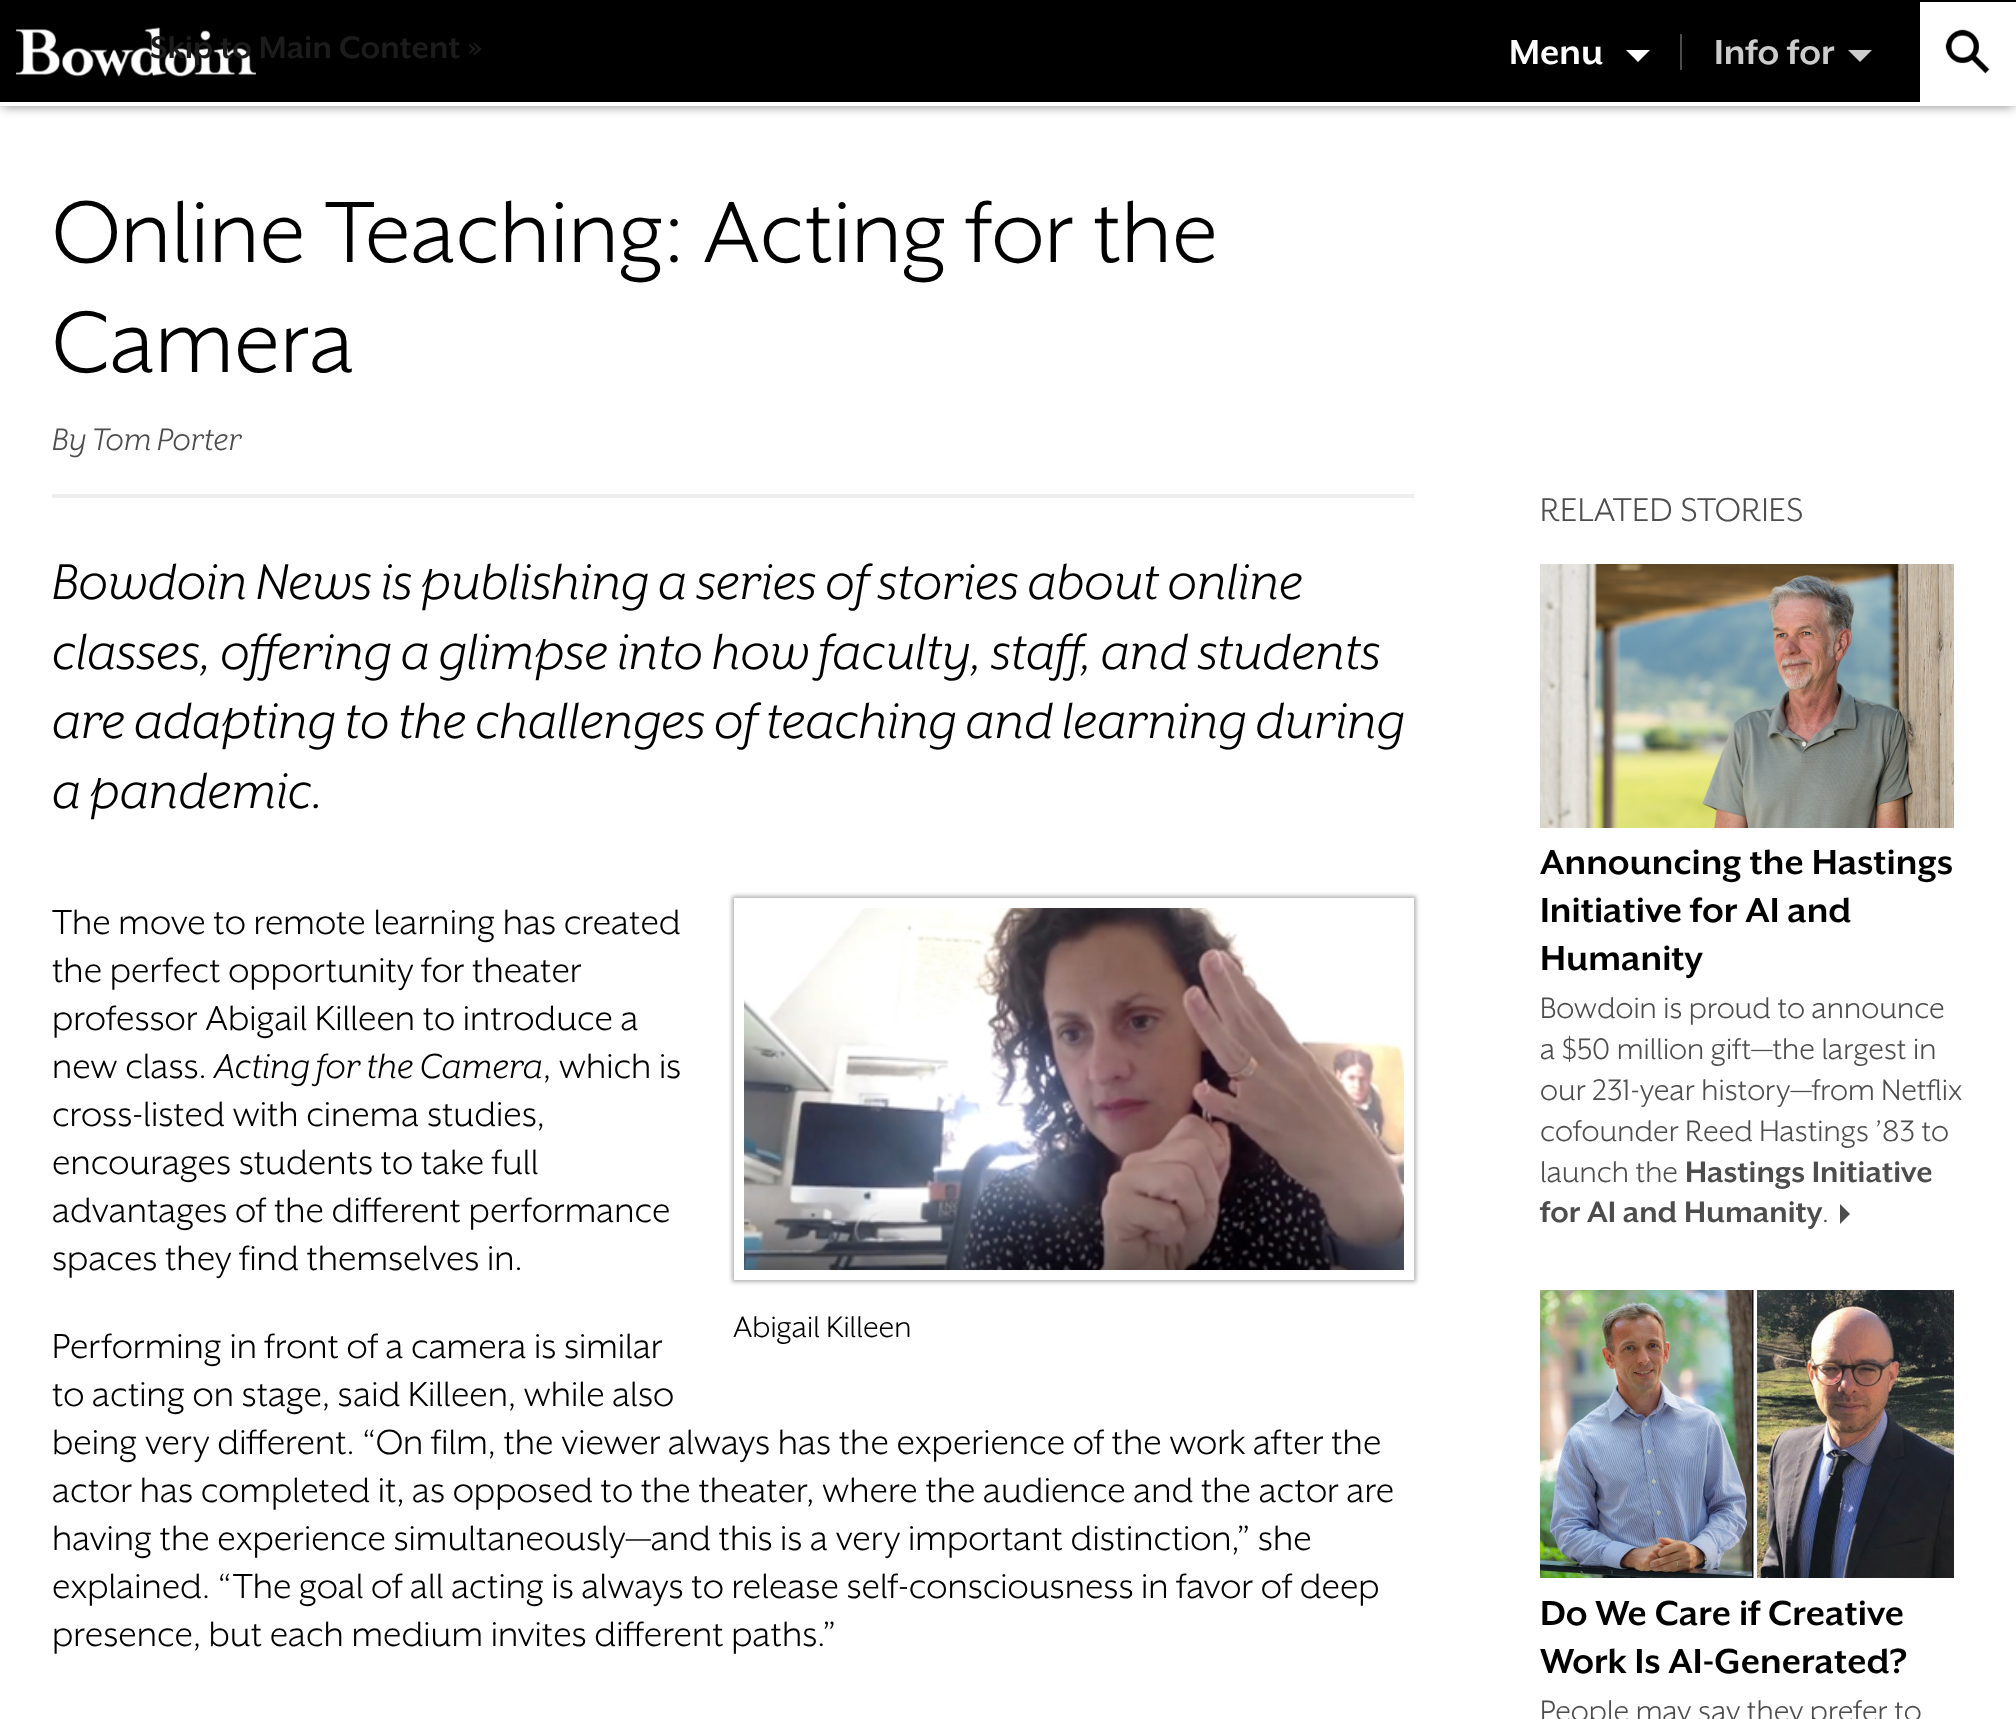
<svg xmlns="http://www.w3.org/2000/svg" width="2016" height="1719">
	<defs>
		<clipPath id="clip1"><path d="M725 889H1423V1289H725ZM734 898H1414V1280H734Z" clip-rule="evenodd" /></clipPath>
	</defs>
	<rect width="100%" height="100%" fill="#FFFFFF" />
	<rect x="2" y="4" width="2012" height="102" fill="#000000" fill-opacity="0.5" filter="blur(6px)" />
	<rect x="0" y="0" width="2016" height="102" fill="#000000" />
	<rect x="0" y="102" width="2016" height="4" fill="#FFFFFF" />
	<image x="16" y="27" width="240" height="50" href="assets/img1.png" />
	<text x="150" y="58" font-family="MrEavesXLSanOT" font-size="36" font-weight="700" fill="#1C1C1C">Skip to Main Content »</text>
	<text x="1509" y="64" font-family="MrEavesXLSanOT" font-size="40" font-weight="700" fill="#FFFFFF">Menu</text>
	<path d="M1626 50H1650L1638 62Z" fill="#FFFFFF" />
	<rect x="1680" y="34" width="2" height="36" fill="#4D4D4D" />
	<text x="1714" y="64" font-family="MrEavesXLSanOT" font-size="40" font-weight="700" fill="#CCCCCC">Info for</text>
	<path d="M1848 50H1872L1860 62Z" fill="#CCCCCC" />
	<rect x="1920" y="2" width="96" height="100" fill="#FFFFFF" />
	<image x="1945" y="29" width="45" height="45" href="assets/img2.png" />
	<g font-family="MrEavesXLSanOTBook" font-size="100" fill="#000000">
		<text x="52" y="262">Online Teaching: Acting for the</text>
		<text x="52" y="372">Camera</text>
	</g>
	<rect x="52" y="494" width="1362" height="4" fill="#EEEEEE" />
	<text x="52" y="450" font-family="MrEavesXLSanOTBook" font-size="36" font-style="italic" fill="#4D4D4D">By Tom Porter</text>
	<g font-family="MrEavesXLSanOTBook" font-size="58" font-style="italic" fill="#000000">
		<text x="52" y="599">Bowdoin News is publishing a series of stories about online</text>
		<text x="52" y="669">classes, offering a glimpse into how faculty, staff, and students</text>
		<text x="52" y="738">are adapting to the challenges of teaching and learning during</text>
		<text x="52" y="808">a pandemic.</text>
	</g>
	<g font-family="MrEavesXLSanOTBook" font-size="40" fill="#000000">
		<text x="52" y="934">The move to remote learning has created</text>
		<text x="52" y="982">the perfect opportunity for theater</text>
		<text x="52" y="1030">professor Abigail Killeen to introduce a</text>
		<text x="52" y="1078">new class.</text>
	</g>
	<text x="214" y="1078" font-family="MrEavesXLSanOTBook" font-size="40" font-style="italic" fill="#000000">Acting for the Camera</text>
	<g font-family="MrEavesXLSanOTBook" font-size="40" fill="#000000">
		<text x="543" y="1078">, which is</text>
		<text x="52" y="1126">cross-listed with cinema studies,</text>
		<text x="52" y="1174">encourages students to take full</text>
		<text x="52" y="1222">advantages of the different performance</text>
		<text x="52" y="1270">spaces they find themselves in.</text>
	</g>
	<g clip-path="url(#clip1)">
		<rect x="732" y="896" width="684" height="386" fill="#000000" fill-opacity="0.3" filter="blur(2px)" />
	</g>
	<image x="744" y="908" width="660" height="362" href="assets/img3.png" />
	<text x="733" y="1337" font-family="MrEavesXLSanOTBook" font-size="34" fill="#000000">Abigail Killeen</text>
	<g font-family="MrEavesXLSanOTBook" font-size="40" fill="#000000">
		<text x="52" y="1358">Performing in front of a camera is similar</text>
		<text x="52" y="1406">to acting on stage, said Killeen, while also</text>
		<text x="52" y="1454">being very different. “On film, the viewer always has the experience of the work after the</text>
		<text x="52" y="1502">actor has completed it, as opposed to the theater, where the audience and the actor are</text>
		<text x="52" y="1550">having the experience simultaneously—and this is a very important distinction,” she</text>
		<text x="52" y="1598">explained. “The goal of all acting is always to release self-consciousness in favor of deep</text>
		<text x="52" y="1646">presence, but each medium invites different paths.”</text>
	</g>
	<text x="1540" y="521" font-family="MrEavesXLSanOTBook" font-size="38" letter-spacing="0.4" fill="#4D4D4D">RELATED STORIES</text>
	<image x="1540" y="564" width="414" height="264" href="assets/img4.png" />
	<g font-family="MrEavesXLSanOT" font-size="40" font-weight="700" fill="#000000">
		<text x="1540" y="874">Announcing the Hastings</text>
		<text x="1540" y="922">Initiative for AI and</text>
		<text x="1540" y="970">Humanity</text>
	</g>
	<g font-family="MrEavesXLSanOTBook" font-size="34" fill="#4D4D4D">
		<text x="1540" y="1018">Bowdoin is proud to announce</text>
		<text x="1540" y="1059">a $50 million gift—the largest in</text>
		<text x="1540" y="1100">our 231-year history—from Netflix</text>
		<text x="1540" y="1141">cofounder Reed Hastings ’83 to</text>
		<text x="1540" y="1182">launch the</text>
	</g>
	<g font-family="MrEavesXLSanOT" font-size="34" font-weight="700" fill="#4D4D4D">
		<text x="1685" y="1182">Hastings Initiative</text>
		<text x="1540" y="1222">for AI and Humanity</text>
	</g>
	<text x="1822" y="1222" font-family="MrEavesXLSanOTBook" font-size="34" fill="#4D4D4D">.</text>
	<path d="M1840 1224V1204L1850 1214Z" fill="#4D4D4D" />
	<image x="1540" y="1290" width="414" height="288" href="assets/img5.png" />
	<g font-family="MrEavesXLSanOT" font-size="40" font-weight="700" fill="#000000">
		<text x="1540" y="1625">Do We Care if Creative</text>
		<text x="1540" y="1673">Work Is AI-Generated?</text>
	</g>
	<text x="1540" y="1721" font-family="MrEavesXLSanOTBook" font-size="34" fill="#4D4D4D">People may say they prefer to</text>
</svg>
